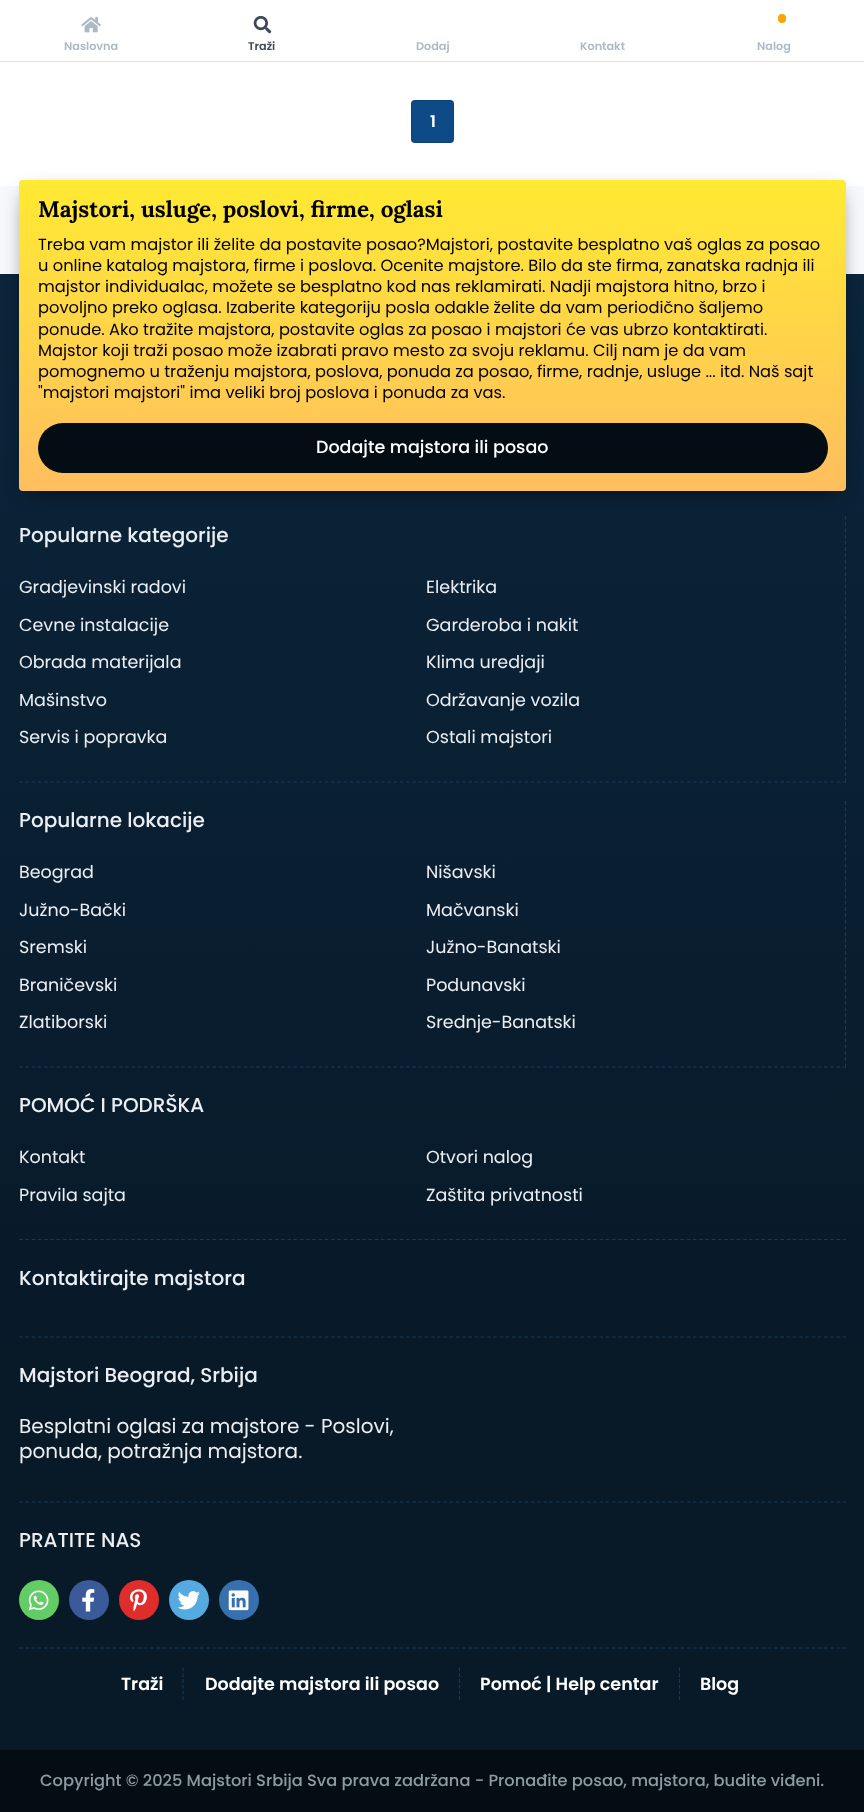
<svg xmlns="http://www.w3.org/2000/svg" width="864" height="1812">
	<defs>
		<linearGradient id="g1" gradientUnits="userSpaceOnUse" x1="432" y1="274" x2="433" y2="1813"><stop offset="0" stop-color="#0B253B" /><stop offset="0.72" stop-color="#081928" /></linearGradient>
		<linearGradient id="g2" gradientUnits="userSpaceOnUse" x1="433" y1="180" x2="433" y2="491"><stop offset="0" stop-color="#FFEA32" /><stop offset="1" stop-color="#FFBE5F" /></linearGradient>
	</defs>
	<rect width="100%" height="100%" fill="#F7F8FB" />
	<rect x="0" y="0" width="864" height="186" fill="#FFFFFF" />
	<rect x="0" y="61" width="864" height="1" fill="#DDDDDD" />
	<image x="81" y="17" width="20" height="16" href="assets/img1.png" />
	<text x="64" y="50" font-family="Poppins" font-size="11.25" font-weight="600" fill="#AEB9C6">Naslovna</text>
	<image x="253" y="15" width="19" height="19" href="assets/img2.png" />
	<text x="248" y="50" font-family="Poppins" font-size="11.25" font-weight="600" fill="#3C4858">Traži</text>
	<g font-family="Poppins" font-size="11.25" font-weight="600" fill="#AEB9C6">
		<text x="416" y="50">Dodaj</text>
		<text x="580" y="50">Kontakt</text>
	</g>
	<rect x="778" y="14" width="8" height="9" rx="4" fill="#F7A404" />
	<text x="757" y="50" font-family="Poppins" font-size="11.25" font-weight="600" fill="#AEB9C6">Nalog</text>
	<rect x="411" y="100" width="43" height="43" rx="4" fill="#0D4A87" />
	<rect x="411.5" y="100.5" width="42" height="42" rx="3.5" fill="none" stroke="#000000" stroke-opacity="0.1" />
	<text x="430" y="127" font-family="Poppins" font-size="16.25" font-weight="600" fill="#FFFFFF">1</text>
	<rect x="0" y="274" width="864" height="1476" fill="url(#g1)" />
	<path d="M845.5 516V782.5" fill="none" stroke="#163A57" stroke-width="1.2" stroke-dasharray="3.75 2.5" />
	<rect x="29" y="196" width="807" height="292" fill="#000000" fill-opacity="0.8" filter="blur(11px)" />
	<rect x="19" y="180" width="827" height="311" rx="4" fill="url(#g2)" />
	<text x="38" y="217" font-family="Lora" font-size="22.5" font-weight="700" fill="#000000">Majstori, usluge, poslovi, firme, oglasi</text>
	<g font-family="Poppins" font-size="16.25" fill="#000000">
		<text x="38" y="250">Treba vam majstor ili želite da postavite posao?Majstori, postavite besplatno vaš oglas za posao</text>
		<text x="38" y="271">u online katalog majstora, firme i poslova. Ocenite majstore. Bilo da ste firma, zanatska radnja ili</text>
		<text x="38" y="292">majstor individualac, možete se besplatno kod nas reklamirati. Nadji majstora hitno, brzo i</text>
		<text x="38" y="313">povoljno preko oglasa. Izaberite kategoriju posla odakle želite da vam periodično šaljemo</text>
		<text x="38" y="335">ponude. Ako tražite majstora, postavite oglas za posao i majstori će vas ubrzo kontaktirati.</text>
		<text x="38" y="356">Majstor koji traži posao može izabrati pravo mesto za svoju reklamu. Cilj nam je da vam</text>
		<text x="38" y="377">pomognemo u traženju majstora, poslova, ponuda za posao, firme, radnje, usluge ... itd. Naš sajt</text>
		<text x="38" y="398">"majstori majstori" ima veliki broj poslova i ponuda za vas.</text>
	</g>
	<rect x="38" y="423" width="790" height="50" rx="25" fill="#040C14" />
	<text x="316" y="453" font-family="Poppins" font-size="17.5" font-weight="500" fill="#FFFFFF">Dodajte majstora ili posao</text>
	<path d="M19 782H846" fill="none" stroke="#163A57" stroke-width="1.2" stroke-dasharray="3.75 2.49" />
	<text x="19" y="542" font-family="Poppins" font-size="20" font-weight="500" fill="#EBEEF2">Popularne kategorije</text>
	<g font-family="Poppins" font-size="17.5" fill="#EBEEF2">
		<text x="19" y="593">Gradjevinski radovi</text>
		<text x="426" y="593">Elektrika</text>
		<text x="19" y="631">Cevne instalacije</text>
		<text x="426" y="631">Garderoba i nakit</text>
		<text x="19" y="668">Obrada materijala</text>
		<text x="426" y="668">Klima uredjaji</text>
		<text x="19" y="706">Mašinstvo</text>
		<text x="426" y="706">Održavanje vozila</text>
		<text x="19" y="743">Servis i popravka</text>
		<text x="426" y="743">Ostali majstori</text>
	</g>
	<path d="M845.5 801V1067.5" fill="none" stroke="#163A57" stroke-width="1.2" stroke-dasharray="3.75 2.5" />
	<path d="M19 1067H846" fill="none" stroke="#163A57" stroke-width="1.2" stroke-dasharray="3.75 2.49" />
	<text x="19" y="827" font-family="Poppins" font-size="20" font-weight="500" fill="#EBEEF2">Popularne lokacije</text>
	<g font-family="Poppins" font-size="17.5" fill="#EBEEF2">
		<text x="19" y="878">Beograd</text>
		<text x="426" y="878">Nišavski</text>
		<text x="19" y="916">Južno-Bački</text>
		<text x="426" y="916">Mačvanski</text>
		<text x="19" y="953">Sremski</text>
		<text x="426" y="953">Južno-Banatski</text>
		<text x="19" y="991">Braničevski</text>
		<text x="426" y="991">Podunavski</text>
		<text x="19" y="1028">Zlatiborski</text>
		<text x="426" y="1028">Srednje-Banatski</text>
	</g>
	<path d="M19 1239.5H846" fill="none" stroke="#163A57" stroke-width="1.2" stroke-dasharray="3.75 2.49" />
	<text x="19" y="1112" font-family="Poppins" font-size="20" font-weight="500" fill="#EBEEF2">POMOĆ I PODRŠKA</text>
	<g font-family="Poppins" font-size="17.5" fill="#EBEEF2">
		<text x="19" y="1163">Kontakt</text>
		<text x="426" y="1163">Otvori nalog</text>
		<text x="19" y="1201">Pravila sajta</text>
		<text x="426" y="1201">Zaštita privatnosti</text>
	</g>
	<path d="M19 1337H846" fill="none" stroke="#163A57" stroke-width="1.2" stroke-dasharray="3.75 2.49" />
	<text x="19" y="1285" font-family="Poppins" font-size="20" font-weight="500" fill="#EBEEF2">Kontaktirajte majstora</text>
	<path d="M19 1502H846" fill="none" stroke="#163A57" stroke-width="1.2" stroke-dasharray="3.75 2.49" />
	<text x="19" y="1382" font-family="Poppins" font-size="20" font-weight="500" fill="#EBEEF2">Majstori Beograd, Srbija</text>
	<g font-family="Poppins" font-size="20" fill="#EBEEF2">
		<text x="19" y="1433">Besplatni oglasi za majstore - Poslovi,</text>
		<text x="19" y="1458">ponuda, potražnja majstora.</text>
	</g>
	<path d="M19 1648H846" fill="none" stroke="#163A57" stroke-width="1.2" stroke-dasharray="3.75 2.49" />
	<text x="19" y="1547" font-family="Poppins" font-size="20" font-weight="500" fill="#EBEEF2">PRATITE NAS</text>
	<circle cx="39" cy="1600" r="20" fill="#62CD64" />
	<image x="28" y="1590" width="21" height="21" href="assets/img3.png" />
	<circle cx="89" cy="1600" r="20" fill="#3B5A99" />
	<image x="82" y="1589" width="13" height="23" href="assets/img4.png" />
	<circle cx="139" cy="1600" r="20" fill="#DE2D2B" />
	<image x="130" y="1589" width="17" height="23" href="assets/img5.png" />
	<circle cx="189" cy="1600" r="20" fill="#55ABE1" />
	<image x="177" y="1591" width="23" height="19" href="assets/img6.png" />
	<circle cx="239" cy="1600" r="20" fill="#3770AE" />
	<image x="228" y="1590" width="21" height="21" href="assets/img7.png" />
	<path d="M183 1667.5V1700" fill="none" stroke="#163A57" stroke-width="1.2" stroke-dasharray="3.75 2" />
	<text x="121" y="1690" font-family="Poppins" font-size="17.5" font-weight="600" fill="#FFFFFF">Traži</text>
	<path d="M459.5 1667.5V1700" fill="none" stroke="#163A57" stroke-width="1.2" stroke-dasharray="3.75 2" />
	<text x="205" y="1690" font-family="Poppins" font-size="17.5" font-weight="600" fill="#FFFFFF">Dodajte majstora ili posao</text>
	<path d="M679.5 1667.5V1700" fill="none" stroke="#163A57" stroke-width="1.2" stroke-dasharray="3.75 2" />
	<g font-family="Poppins" font-size="17.5" font-weight="600" fill="#FFFFFF">
		<text x="480" y="1690">Pomoć | Help centar</text>
		<text x="700" y="1690">Blog</text>
	</g>
	<rect x="0" y="1750" width="864" height="62" fill="#040C14" />
	<text x="40" y="1786" font-family="Poppins" font-size="16.25" font-weight="500" fill="#8D9CA4">Copyright © 2025 Majstori Srbija Sva prava zadržana - Pronađite posao, majstora, budite viđeni.</text>
</svg>
